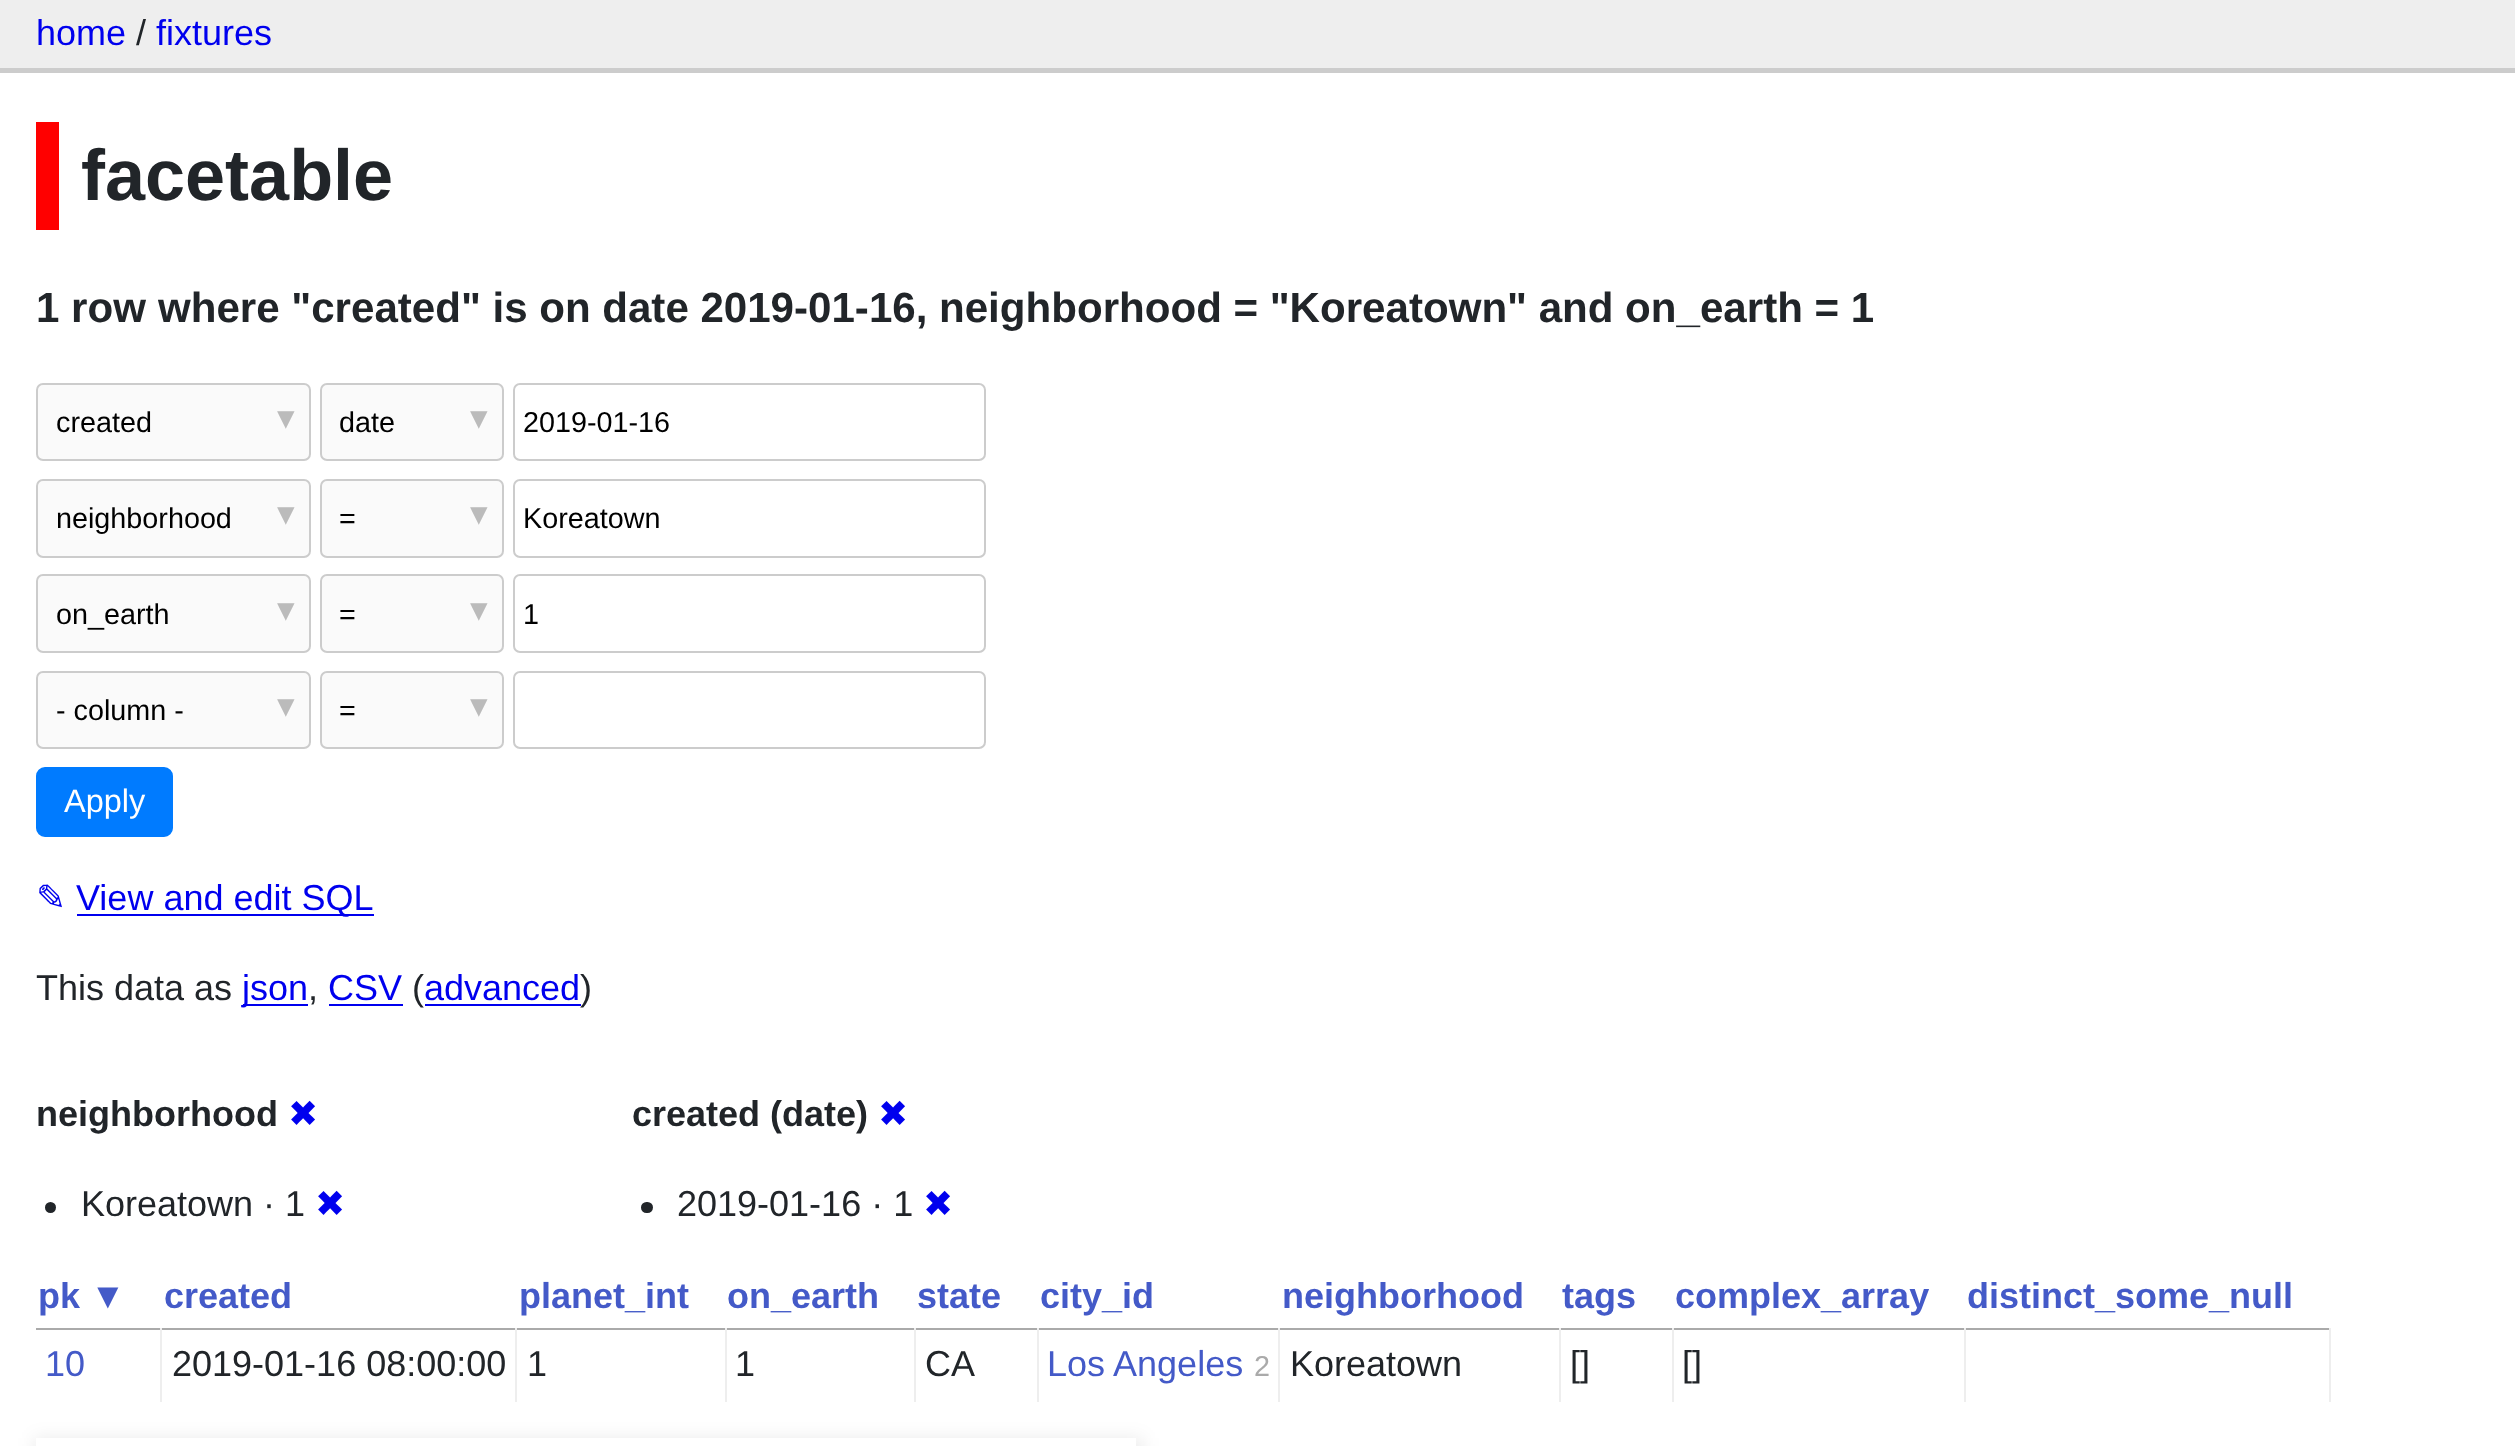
<svg xmlns="http://www.w3.org/2000/svg" width="2515" height="1446">
	<defs>
		<clipPath id="clip1"><path d="M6 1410H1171V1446H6ZM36 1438H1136V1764H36Z" clip-rule="evenodd" /></clipPath>
	</defs>
	<rect width="100%" height="100%" fill="#FFFFFF" />
	<rect x="0" y="0" width="2515" height="68" fill="#EEEEEE" />
	<rect x="0" y="68" width="2515" height="5" fill="#CCCCCC" />
	<text x="36" y="45" font-family="Liberation Sans" font-size="36" fill="#0000EE">home</text>
	<text x="136" y="45" font-family="Liberation Sans" font-size="36" fill="#212529">/</text>
	<text x="156" y="45" font-family="Liberation Sans" font-size="36" fill="#0000EE">fixtures</text>
	<rect x="36" y="122" width="23" height="108" fill="#FF0000" />
	<text x="81" y="200" font-family="Liberation Sans" font-size="72" font-weight="700" fill="#212529">facetable</text>
	<g font-family="Liberation Sans" font-size="42.1" font-weight="700" fill="#212529">
		<text x="36" y="322">1 row</text>
		<text x="158" y="322" word-spacing="-0.1">where "created" is on date 2019-01-16, neighborhood = "Koreatown" and on_earth = 1</text>
	</g>
	<rect x="37" y="384" width="273" height="76" rx="6" fill="#FAFAFA" stroke="#CCCCCC" stroke-width="2" />
	<text x="56" y="432" font-family="Liberation Sans" font-size="28.75" fill="#000000">created</text>
	<text x="277" y="429" font-family="DejaVu Sans" font-size="35" fill="#BBBBBB">▾</text>
	<rect x="321" y="384" width="182" height="76" rx="6" fill="#FAFAFA" stroke="#CCCCCC" stroke-width="2" />
	<text x="339" y="432" font-family="Liberation Sans" font-size="28.75" fill="#000000">date</text>
	<text x="470" y="429" font-family="DejaVu Sans" font-size="35" fill="#BBBBBB">▾</text>
	<rect x="514" y="384" width="471" height="76" rx="6" fill="none" stroke="#CCCCCC" stroke-width="2" />
	<text x="523" y="432" font-family="Liberation Sans" font-size="28.75" fill="#000000">2019-01-16</text>
	<rect x="37" y="480" width="273" height="77" rx="6" fill="#FAFAFA" stroke="#CCCCCC" stroke-width="2" />
	<text x="56" y="528" font-family="Liberation Sans" font-size="28.75" fill="#000000">neighborhood</text>
	<text x="277" y="525" font-family="DejaVu Sans" font-size="35" fill="#BBBBBB">▾</text>
	<rect x="321" y="480" width="182" height="77" rx="6" fill="#FAFAFA" stroke="#CCCCCC" stroke-width="2" />
	<text x="339" y="528" font-family="Liberation Sans" font-size="28.75" fill="#000000">=</text>
	<text x="470" y="525" font-family="DejaVu Sans" font-size="35" fill="#BBBBBB">▾</text>
	<rect x="514" y="480" width="471" height="77" rx="6" fill="none" stroke="#CCCCCC" stroke-width="2" />
	<text x="523" y="528" font-family="Liberation Sans" font-size="28.75" fill="#000000">Koreatown</text>
	<rect x="37" y="575" width="273" height="77" rx="6" fill="#FAFAFA" stroke="#CCCCCC" stroke-width="2" />
	<text x="56" y="624" font-family="Liberation Sans" font-size="28.75" fill="#000000">on_earth</text>
	<text x="277" y="621" font-family="DejaVu Sans" font-size="35" fill="#BBBBBB">▾</text>
	<rect x="321" y="575" width="182" height="77" rx="6" fill="#FAFAFA" stroke="#CCCCCC" stroke-width="2" />
	<text x="339" y="624" font-family="Liberation Sans" font-size="28.75" fill="#000000">=</text>
	<text x="470" y="621" font-family="DejaVu Sans" font-size="35" fill="#BBBBBB">▾</text>
	<rect x="514" y="575" width="471" height="77" rx="6" fill="none" stroke="#CCCCCC" stroke-width="2" />
	<text x="523" y="624" font-family="Liberation Sans" font-size="28.75" fill="#000000">1</text>
	<rect x="37" y="672" width="273" height="76" rx="6" fill="#FAFAFA" stroke="#CCCCCC" stroke-width="2" />
	<text x="56" y="720" font-family="Liberation Sans" font-size="28.75" fill="#000000">- column -</text>
	<text x="277" y="717" font-family="DejaVu Sans" font-size="35" fill="#BBBBBB">▾</text>
	<rect x="321" y="672" width="182" height="76" rx="6" fill="#FAFAFA" stroke="#CCCCCC" stroke-width="2" />
	<text x="339" y="720" font-family="Liberation Sans" font-size="28.75" fill="#000000">=</text>
	<text x="470" y="717" font-family="DejaVu Sans" font-size="35" fill="#BBBBBB">▾</text>
	<rect x="514" y="672" width="471" height="76" rx="6" fill="none" stroke="#CCCCCC" stroke-width="2" />
	<rect x="37" y="768" width="135" height="68" rx="8" fill="#007BFF" stroke="#007BFF" stroke-width="2" />
	<text x="64" y="812" font-family="Liberation Sans" font-size="32.5" fill="#FFFFFF">Apply</text>
	<text x="36" y="910" font-family="DejaVu Sans" font-size="36" fill="#0000EE">✎</text>
	<rect x="77" y="914" width="297" height="2" fill="#0000EE" />
	<text x="76" y="910" font-family="Liberation Sans" font-size="36" fill="#0000EE">View and edit SQL</text>
	<text x="36" y="1000" font-family="Liberation Sans" font-size="36" fill="#212529">This data as</text>
	<rect x="243" y="1004" width="65" height="2" fill="#0000EE" />
	<text x="242" y="1000" font-family="Liberation Sans" font-size="36" fill="#0000EE">json</text>
	<text x="308" y="1000" font-family="Liberation Sans" font-size="36" fill="#212529">,</text>
	<text x="328" y="1000" font-family="Liberation Sans" font-size="36" fill="#0000EE">CSV</text>
	<rect x="329" y="1004" width="74" height="2" fill="#0000EE" />
	<text x="412" y="1000" font-family="Liberation Sans" font-size="36" fill="#212529">(</text>
	<text x="424" y="1000" font-family="Liberation Sans" font-size="36" fill="#0000EE">advanced</text>
	<rect x="425" y="1004" width="156" height="2" fill="#0000EE" />
	<text x="580" y="1000" font-family="Liberation Sans" font-size="36" fill="#212529">)</text>
	<text x="36" y="1126" font-family="Liberation Sans" font-size="36" font-weight="700" fill="#212529">neighborhood</text>
	<text x="288" y="1126" font-family="DejaVu Sans" font-size="36" fill="#0000EE">✖</text>
	<circle cx="50.5" cy="1207.5" r="5.5" fill="#212529" />
	<text x="81" y="1216" font-family="Liberation Sans" font-size="36" fill="#212529">Koreatown · 1</text>
	<text x="315" y="1216" font-family="DejaVu Sans" font-size="36" fill="#0000EE">✖</text>
	<text x="632" y="1126" font-family="Liberation Sans" font-size="36" font-weight="700" fill="#212529">created (date)</text>
	<text x="878" y="1126" font-family="DejaVu Sans" font-size="36" fill="#0000EE">✖</text>
	<rect x="641" y="1202" width="12" height="11" rx="5.5" fill="#212529" />
	<text x="677" y="1216" font-family="Liberation Sans" font-size="36" fill="#212529">2019-01-16 · 1</text>
	<text x="923" y="1216" font-family="DejaVu Sans" font-size="36" fill="#0000EE">✖</text>
	<g font-family="Liberation Sans" font-size="36" font-weight="700" fill="#445AC8">
		<text x="38" y="1308">pk ▼</text>
		<text x="164" y="1308">created</text>
		<text x="519" y="1308">planet_int</text>
		<text x="727" y="1308">on_earth</text>
		<text x="917" y="1308">state</text>
		<text x="1040" y="1308">city_id</text>
		<text x="1282" y="1308">neighborhood</text>
		<text x="1562" y="1308">tags</text>
		<text x="1675" y="1308">complex_array</text>
		<text x="1967" y="1308">distinct_some_null</text>
	</g>
	<rect x="36" y="1328" width="2295" height="2" fill="#AAAAAA" />
	<rect x="2329" y="1328" width="2" height="74" fill="#EEEEEE" />
	<rect x="160" y="1328" width="2" height="74" fill="#EEEEEE" />
	<text x="45" y="1376" font-family="Liberation Sans" font-size="36" fill="#445AC8">10</text>
	<rect x="515" y="1328" width="2" height="74" fill="#EEEEEE" />
	<text x="172" y="1376" font-family="Liberation Sans" font-size="36" fill="#212529">2019-01-16 08:00:00</text>
	<rect x="725" y="1328" width="2" height="74" fill="#EEEEEE" />
	<text x="527" y="1376" font-family="Liberation Sans" font-size="36" fill="#212529">1</text>
	<rect x="914" y="1328" width="2" height="74" fill="#EEEEEE" />
	<text x="735" y="1376" font-family="Liberation Sans" font-size="36" fill="#212529">1</text>
	<rect x="1037" y="1328" width="2" height="74" fill="#EEEEEE" />
	<text x="925" y="1376" font-family="Liberation Sans" font-size="36" fill="#212529">CA</text>
	<rect x="1278" y="1328" width="2" height="74" fill="#EEEEEE" />
	<text x="1047" y="1376" font-family="Liberation Sans" font-size="36" fill="#445AC8">Los Angeles</text>
	<text x="1254" y="1376" font-family="Liberation Sans" font-size="28.75" fill="#AAAAAA">2</text>
	<rect x="1559" y="1328" width="2" height="74" fill="#EEEEEE" />
	<text x="1290" y="1376" font-family="Liberation Sans" font-size="36" fill="#212529">Koreatown</text>
	<rect x="1672" y="1328" width="2" height="74" fill="#EEEEEE" />
	<text x="1570" y="1376" font-family="Liberation Sans" font-size="36" fill="#212529">[]</text>
	<rect x="1964" y="1328" width="2" height="74" fill="#EEEEEE" />
	<text x="1682" y="1376" font-family="Liberation Sans" font-size="36" fill="#212529">[]</text>
	<g clip-path="url(#clip1)">
		<rect x="34" y="1438" width="1109" height="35" fill="#000000" fill-opacity="0.08" filter="blur(9px)" />
	</g>
</svg>
